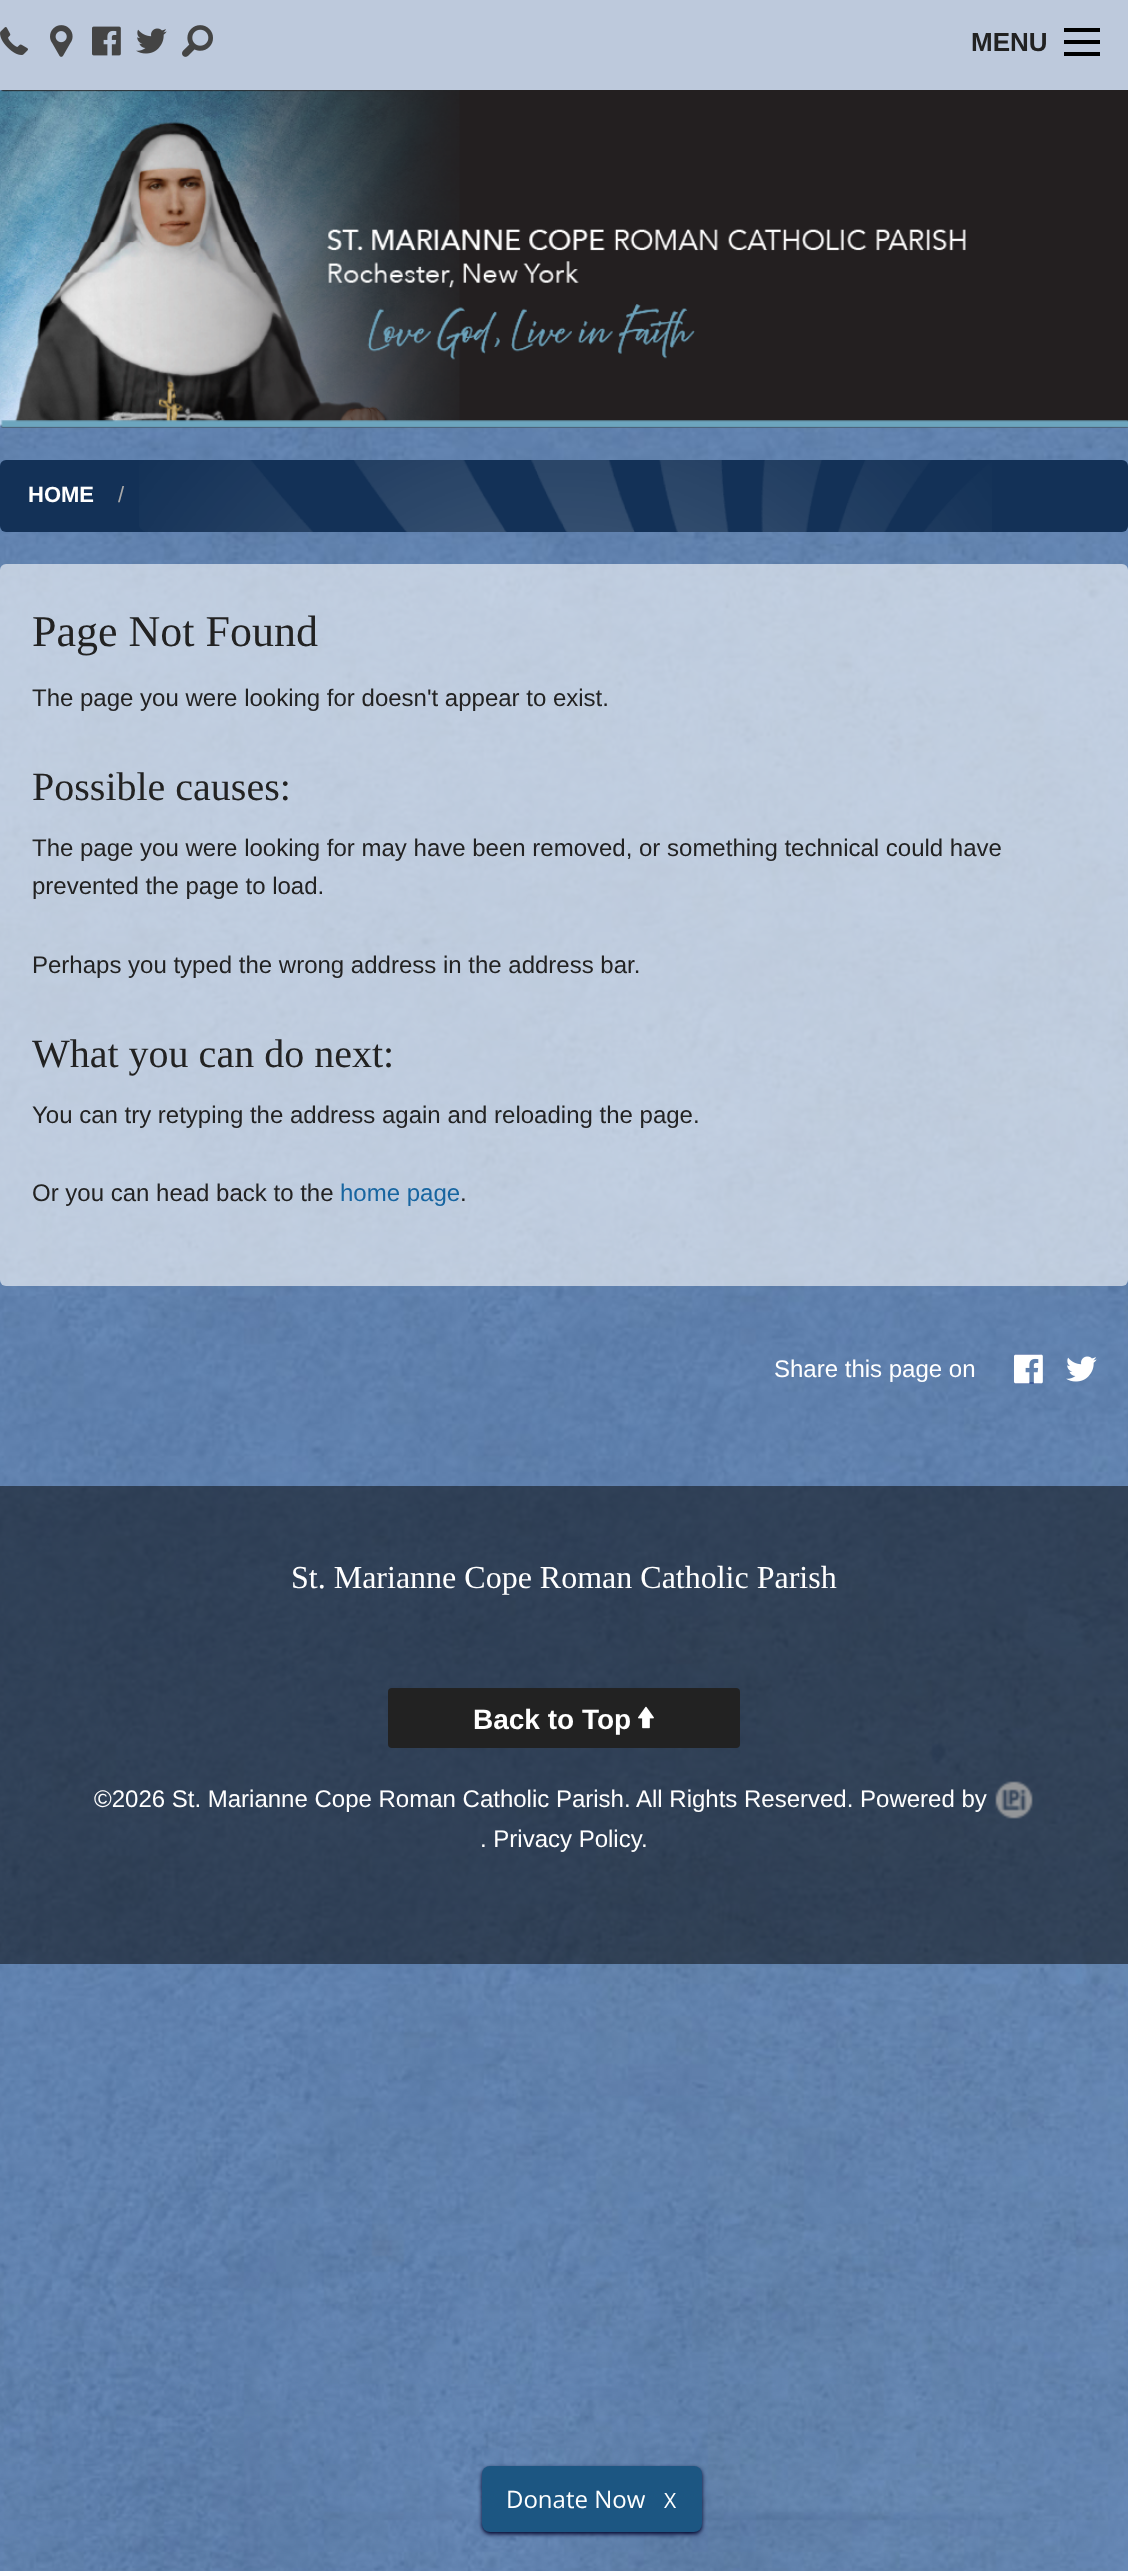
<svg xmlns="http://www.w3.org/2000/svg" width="1128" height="2571">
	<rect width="100%" height="100%" fill="#FFFFFF" />
	<image x="0" y="90" width="1128" height="2481" href="assets/img1.png" />
	<rect x="0" y="0" width="1128" height="90" fill="#BDC9DC" />
	<image x="0" y="27" width="28" height="28" href="assets/img2.png" />
	<image x="50" y="25" width="23" height="32" href="assets/img3.png" />
	<image x="92" y="26" width="29" height="30" href="assets/img4.png" />
	<image x="136" y="28" width="31" height="26" href="assets/img5.png" />
	<image x="182" y="25" width="31" height="32" href="assets/img6.png" />
	<text x="971" y="51" font-family="Liberation Sans" font-size="26" font-weight="700" fill="#222222">MENU</text>
	<rect x="1064" y="52" width="36" height="4" fill="#000000" />
	<rect x="1064" y="40" width="36" height="4" fill="#000000" />
	<rect x="1064" y="28" width="36" height="4" fill="#000000" />
	<image x="0" y="90" width="1128" height="338" href="assets/img7.png" />
	<rect x="0" y="460" width="1128" height="72" rx="6" fill="#133157" />
	<image x="139" y="460" width="853" height="72" href="assets/img8.png" />
	<text x="28" y="502" font-family="Liberation Sans" font-size="22" font-weight="700" fill="#FFFFFF">HOME</text>
	<text x="118" y="502" font-family="Liberation Sans" font-size="22" fill="#AAAAAA">/</text>
	<rect x="0" y="564" width="1128" height="722" rx="6" fill="#FFFFFF" fill-opacity="0.6" />
	<text x="32" y="646" font-family="Liberation Serif" font-size="44" fill="#222222">Page Not Found</text>
	<text x="32" y="706" font-family="Liberation Sans" font-size="24" fill="#222222">The page you were looking for doesn't appear to exist.</text>
	<text x="32" y="800" font-family="Liberation Serif" font-size="40" fill="#222222">Possible causes:</text>
	<g font-family="Liberation Sans" font-size="24" fill="#222222">
		<text x="32" y="856">The page you were looking for may have been removed, or something technical could have</text>
		<text x="32" y="894">prevented the page to load.</text>
		<text x="32" y="973">Perhaps you typed the wrong address in the address bar.</text>
	</g>
	<text x="32" y="1067" font-family="Liberation Serif" font-size="40" fill="#222222">What you can do next:</text>
	<g font-family="Liberation Sans" font-size="24" fill="#222222">
		<text x="32" y="1123">You can try retyping the address again and reloading the page.</text>
		<text x="32" y="1201">Or you can head back to the</text>
	</g>
	<text x="340" y="1201" font-family="Liberation Sans" font-size="24" fill="#1765A0">home page</text>
	<text x="460" y="1201" font-family="Liberation Sans" font-size="24" fill="#222222">.</text>
	<text x="774" y="1377" font-family="Liberation Sans" font-size="24" fill="#FFFFFF">Share this page on</text>
	<rect x="1015" y="1355" width="26" height="28" rx="2" fill="none" stroke="#3B5998" stroke-width="2" />
	<image x="1014" y="1354" width="29" height="30" href="assets/img9.png" />
	<image x="1066" y="1356" width="31" height="26" href="assets/img10.png" />
	<rect x="0" y="1486" width="1128" height="478" fill="#000000" fill-opacity="0.5" />
	<text x="291" y="1588" font-family="Liberation Serif" font-size="32" fill="#FFFFFF">St. Marianne Cope Roman Catholic Parish</text>
	<rect x="388" y="1688" width="352" height="60" rx="4" fill="#222222" />
	<text x="473" y="1729" font-family="Liberation Sans" font-size="28" font-weight="700" fill="#FFFFFF">Back to Top</text>
	<image x="638" y="1706" width="16" height="23" href="assets/img11.png" />
	<text x="94" y="1807" font-family="Liberation Sans" font-size="24" fill="#FFFFFF">©2026 St. Marianne Cope Roman Catholic Parish. All Rights Reserved. Powered by</text>
	<image x="995" y="1781" width="38" height="38" href="assets/img12.png" />
	<text x="480" y="1847" font-family="Liberation Sans" font-size="24" fill="#FFFFFF">. Privacy Policy.</text>
	<rect x="482" y="2468" width="220" height="66" rx="8" fill="#000029" filter="blur(2px)" />
	<rect x="482" y="2466" width="220" height="66" rx="8" fill="#1C5682" />
	<text x="506" y="2508" font-family="Open Sans" font-size="24" fill="#FFFFFF">Donate Now</text>
	<text x="664" y="2508" font-family="Open Sans" font-size="21" fill="#FFFFFF">X</text>
</svg>
